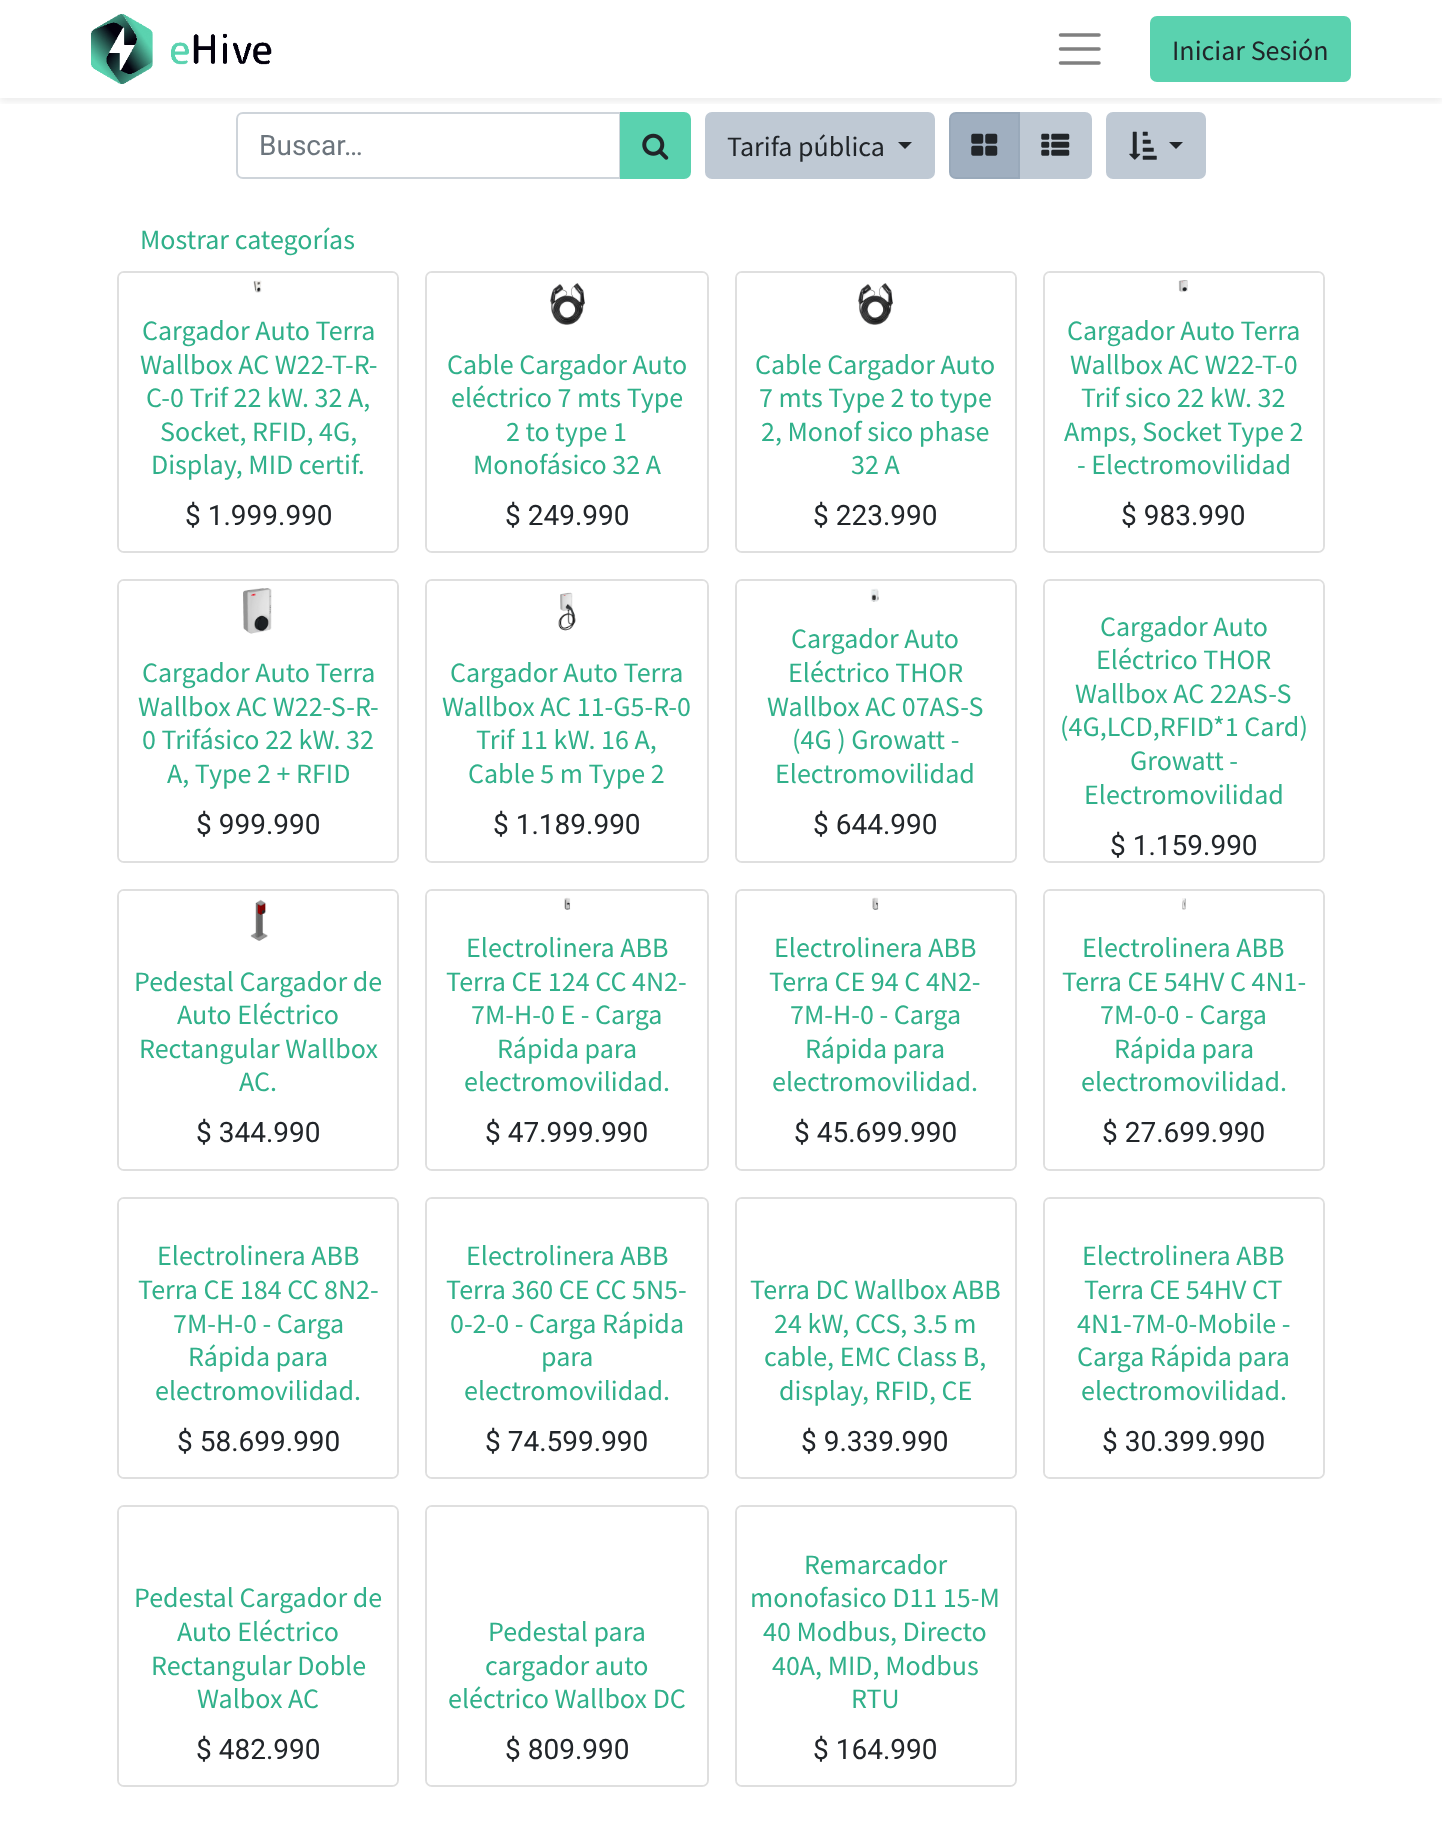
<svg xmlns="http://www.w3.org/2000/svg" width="1442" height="1828">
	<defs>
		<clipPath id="clip1"><rect x="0" y="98" width="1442" height="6" /></clipPath>
	</defs>
	<rect width="100%" height="100%" fill="#FFFFFF" />
	<path d="M243 113H620V178H243C239.5 178 237 175.5 237 172V119C237 115.5 239.5 113 243 113Z" fill="none" stroke="#CED4DA" stroke-width="2" />
	<path d="M621 113H684C687.5 113 690 115.5 690 119V172C690 175.5 687.5 178 684 178H621Z" fill="#5AD2AF" stroke="#5AD2AF" stroke-width="2" />
	<rect x="706" y="113" width="228" height="65" rx="6" fill="#BFC9D4" stroke="#BFC9D4" stroke-width="2" />
	<path d="M1020 113H1085C1088.5 113 1091 115.5 1091 119V172C1091 175.5 1088.5 178 1085 178H1020Z" fill="#BFC9D4" stroke="#BFC9D4" stroke-width="2" />
	<path d="M956 113H1019V178H956C952.5 178 950 175.5 950 172V119C950 115.5 952.5 113 956 113Z" fill="#A0AFC0" stroke="#99A9BA" stroke-width="2" />
	<rect x="1107" y="113" width="98" height="65" rx="6" fill="#BFC9D4" stroke="#BFC9D4" stroke-width="2" />
	<g clip-path="url(#clip1)">
		<rect x="0" y="4" width="1442" height="98" fill="#000000" fill-opacity="0.07" filter="blur(3.5px)" />
	</g>
	<image x="91" y="14" width="181" height="70" href="assets/img1.png" />
	<path d="M1060.5 35H1099M1060.5 49H1099M1060.5 63H1099" fill="none" stroke="#808080" stroke-width="3.5" stroke-linecap="round" />
	<rect x="1151" y="17" width="199" height="64" rx="6" fill="#5AD2AF" stroke="#5AD2AF" stroke-width="2" />
	<text x="1172" y="60" font-family="Source Sans Pro" font-size="28" fill="#212529">Iniciar Sesión</text>
	<text x="259" y="155" font-family="Roboto" font-size="28" fill="#6C757D">Buscar…</text>
	<image x="642" y="133" width="27" height="27" href="assets/img2.png" />
	<text x="727" y="156" font-family="Source Sans Pro" font-size="28" fill="#212529">Tarifa pública</text>
	<path d="M898 142H912L905 149Z" fill="#212529" />
	<image x="971" y="133" width="27" height="23" href="assets/img3.png" />
	<image x="1041" y="133" width="29" height="23" href="assets/img4.png" />
	<image x="1129" y="131" width="28" height="29" href="assets/img5.png" />
	<path d="M1169 142H1183L1176 149Z" fill="#212529" />
	<text x="140" y="249" font-family="Source Sans Pro" font-size="28" fill="#30B08A">Mostrar categorías</text>
	<rect x="118" y="272" width="280" height="280" rx="6" fill="none" stroke="#DFDFDF" stroke-width="2" />
	<path d="M124 273H392C395 273 397 275 397 278V299H119V278C119 275 121 273 124 273Z" fill="#FFFFFF" fill-opacity="0.9" />
	<image x="253" y="280" width="9" height="13" href="assets/img6.png" />
	<path d="M119 299H397V546C397 549 395 551 392 551H124C121 551 119 549 119 546Z" fill="#FFFFFF" fill-opacity="0.9" />
	<g font-family="Source Sans Pro" font-size="28" fill="#30B08A">
		<text x="142" y="340">Cargador Auto Terra</text>
		<text x="140" y="374">Wallbox AC W22-T-R-</text>
		<text x="146" y="407">C-0 Trif 22 kW. 32 A,</text>
		<text x="160" y="441">Socket, RFID, 4G,</text>
		<text x="151" y="474">Display, MID certif.</text>
	</g>
	<text x="185" y="525" font-family="Roboto" font-size="28" fill="#212529">$ 1.999.990</text>
	<rect x="426" y="272" width="282" height="280" rx="6" fill="none" stroke="#DFDFDF" stroke-width="2" />
	<path d="M432 273H702C705 273 707 275 707 278V334H427V278C427 275 429 273 432 273Z" fill="#FFFFFF" fill-opacity="0.9" />
	<image x="550" y="283" width="35" height="42" href="assets/img7.png" />
	<path d="M427 334H707V546C707 549 705 551 702 551H432C429 551 427 549 427 546Z" fill="#FFFFFF" fill-opacity="0.9" />
	<g font-family="Source Sans Pro" font-size="28" fill="#30B08A">
		<text x="447" y="374">Cable Cargador Auto</text>
		<text x="451" y="407">eléctrico 7 mts Type</text>
		<text x="506" y="441">2 to type 1</text>
		<text x="473" y="474">Monofásico 32 A</text>
	</g>
	<text x="505" y="525" font-family="Roboto" font-size="28" fill="#212529">$ 249.990</text>
	<rect x="736" y="272" width="280" height="280" rx="6" fill="none" stroke="#DFDFDF" stroke-width="2" />
	<path d="M742 273H1010C1013 273 1015 275 1015 278V334H737V278C737 275 739 273 742 273Z" fill="#FFFFFF" fill-opacity="0.9" />
	<image x="858" y="283" width="35" height="42" href="assets/img7.png" />
	<path d="M737 334H1015V546C1015 549 1013 551 1010 551H742C739 551 737 549 737 546Z" fill="#FFFFFF" fill-opacity="0.9" />
	<g font-family="Source Sans Pro" font-size="28" fill="#30B08A">
		<text x="755" y="374">Cable Cargador Auto</text>
		<text x="759" y="407">7 mts Type 2 to type</text>
		<text x="761" y="441">2, Monof sico phase</text>
		<text x="851" y="474">32 A</text>
	</g>
	<text x="813" y="525" font-family="Roboto" font-size="28" fill="#212529">$ 223.990</text>
	<rect x="1044" y="272" width="280" height="280" rx="6" fill="none" stroke="#DFDFDF" stroke-width="2" />
	<path d="M1050 273H1318C1321 273 1323 275 1323 278V299H1045V278C1045 275 1047 273 1050 273Z" fill="#FFFFFF" fill-opacity="0.9" />
	<image x="1178" y="280" width="10" height="13" href="assets/img8.png" />
	<path d="M1045 299H1323V546C1323 549 1321 551 1318 551H1050C1047 551 1045 549 1045 546Z" fill="#FFFFFF" fill-opacity="0.9" />
	<g font-family="Source Sans Pro" font-size="28" fill="#30B08A">
		<text x="1067" y="340">Cargador Auto Terra</text>
		<text x="1070" y="374">Wallbox AC W22-T-0</text>
		<text x="1081" y="407">Trif sico 22 kW. 32</text>
		<text x="1064" y="441">Amps, Socket Type 2</text>
		<text x="1077" y="474">- Electromovilidad</text>
	</g>
	<text x="1121" y="525" font-family="Roboto" font-size="28" fill="#212529">$ 983.990</text>
	<rect x="118" y="580" width="280" height="282" rx="6" fill="none" stroke="#DFDFDF" stroke-width="2" />
	<path d="M124 581H392C395 581 397 583 397 586V642H119V586C119 583 121 581 124 581Z" fill="#FFFFFF" fill-opacity="0.9" />
	<image x="243" y="588" width="29" height="46" href="assets/img9.png" />
	<path d="M119 642H397V856C397 859 395 861 392 861H124C121 861 119 859 119 856Z" fill="#FFFFFF" fill-opacity="0.9" />
	<g font-family="Source Sans Pro" font-size="28" fill="#30B08A">
		<text x="142" y="682">Cargador Auto Terra</text>
		<text x="138" y="716">Wallbox AC W22-S-R-</text>
		<text x="142" y="749">0 Trifásico 22 kW. 32</text>
		<text x="167" y="783">A, Type 2 + RFID</text>
	</g>
	<text x="196" y="834" font-family="Roboto" font-size="28" fill="#212529">$ 999.990</text>
	<rect x="426" y="580" width="282" height="282" rx="6" fill="none" stroke="#DFDFDF" stroke-width="2" />
	<path d="M432 581H702C705 581 707 583 707 586V642H427V586C427 583 429 581 432 581Z" fill="#FFFFFF" fill-opacity="0.9" />
	<image x="558" y="592" width="18" height="39" href="assets/img10.png" />
	<path d="M427 642H707V856C707 859 705 861 702 861H432C429 861 427 859 427 856Z" fill="#FFFFFF" fill-opacity="0.9" />
	<g font-family="Source Sans Pro" font-size="28" fill="#30B08A">
		<text x="450" y="682">Cargador Auto Terra</text>
		<text x="442" y="716">Wallbox AC 11-G5-R-0</text>
		<text x="476" y="749">Trif 11 kW. 16 A,</text>
		<text x="468" y="783">Cable 5 m Type 2</text>
	</g>
	<text x="493" y="834" font-family="Roboto" font-size="28" fill="#212529">$ 1.189.990</text>
	<rect x="736" y="580" width="280" height="282" rx="6" fill="none" stroke="#DFDFDF" stroke-width="2" />
	<path d="M742 581H1010C1013 581 1015 583 1015 586V609H737V586C737 583 739 581 742 581Z" fill="#FFFFFF" fill-opacity="0.9" />
	<image x="870" y="588" width="9" height="14" href="assets/img11.png" />
	<path d="M737 609H1015V856C1015 859 1013 861 1010 861H742C739 861 737 859 737 856Z" fill="#FFFFFF" fill-opacity="0.9" />
	<g font-family="Source Sans Pro" font-size="28" fill="#30B08A">
		<text x="791" y="648">Cargador Auto</text>
		<text x="788" y="682">Eléctrico THOR</text>
		<text x="767" y="716">Wallbox AC 07AS-S</text>
		<text x="792" y="749">(4G ) Growatt -</text>
		<text x="775" y="783">Electromovilidad</text>
	</g>
	<text x="813" y="834" font-family="Roboto" font-size="28" fill="#212529">$ 644.990</text>
	<rect x="1044" y="580" width="280" height="282" rx="6" fill="none" stroke="#DFDFDF" stroke-width="2" />
	<path d="M1050 581H1318C1321 581 1323 583 1323 586V595H1045V586C1045 583 1047 581 1050 581Z" fill="#FFFFFF" fill-opacity="0.9" />
	<path d="M1045 595H1323V856C1323 859 1321 861 1318 861H1050C1047 861 1045 859 1045 856Z" fill="#FFFFFF" fill-opacity="0.9" />
	<g font-family="Source Sans Pro" font-size="28" fill="#30B08A">
		<text x="1100" y="636">Cargador Auto</text>
		<text x="1096" y="669">Eléctrico THOR</text>
		<text x="1075" y="703">Wallbox AC 22AS-S</text>
		<text x="1060" y="736">(4G,LCD,RFID*1 Card)</text>
		<text x="1130" y="770">Growatt -</text>
		<text x="1084" y="804">Electromovilidad</text>
	</g>
	<text x="1110" y="855" font-family="Roboto" font-size="28" fill="#212529">$ 1.159.990</text>
	<rect x="118" y="890" width="280" height="280" rx="6" fill="none" stroke="#DFDFDF" stroke-width="2" />
	<path d="M124 891H392C395 891 397 893 397 896V950H119V896C119 893 121 891 124 891Z" fill="#FFFFFF" fill-opacity="0.9" />
	<image x="250" y="899" width="18" height="42" href="assets/img12.png" />
	<path d="M119 950H397V1164C397 1167 395 1169 392 1169H124C121 1169 119 1167 119 1164Z" fill="#FFFFFF" fill-opacity="0.9" />
	<g font-family="Source Sans Pro" font-size="28" fill="#30B08A">
		<text x="134" y="991">Pedestal Cargador de</text>
		<text x="177" y="1024">Auto Eléctrico</text>
		<text x="139" y="1058">Rectangular Wallbox</text>
		<text x="239" y="1091">AC.</text>
	</g>
	<text x="196" y="1142" font-family="Roboto" font-size="28" fill="#212529">$ 344.990</text>
	<rect x="426" y="890" width="282" height="280" rx="6" fill="none" stroke="#DFDFDF" stroke-width="2" />
	<path d="M432 891H702C705 891 707 893 707 896V917H427V896C427 893 429 891 432 891Z" fill="#FFFFFF" fill-opacity="0.9" />
	<image x="564" y="897" width="7" height="13" href="assets/img13.png" />
	<path d="M427 917H707V1164C707 1167 705 1169 702 1169H432C429 1169 427 1167 427 1164Z" fill="#FFFFFF" fill-opacity="0.9" />
	<g font-family="Source Sans Pro" font-size="28" fill="#30B08A">
		<text x="466" y="957">Electrolinera ABB</text>
		<text x="446" y="991">Terra CE 124 CC 4N2-</text>
		<text x="471" y="1024">7M-H-0 E - Carga</text>
		<text x="497" y="1058">Rápida para</text>
		<text x="464" y="1091">electromovilidad.</text>
	</g>
	<text x="485" y="1142" font-family="Roboto" font-size="28" fill="#212529">$ 47.999.990</text>
	<rect x="736" y="890" width="280" height="280" rx="6" fill="none" stroke="#DFDFDF" stroke-width="2" />
	<path d="M742 891H1010C1013 891 1015 893 1015 896V917H737V896C737 893 739 891 742 891Z" fill="#FFFFFF" fill-opacity="0.9" />
	<image x="872" y="897" width="7" height="13" href="assets/img14.png" />
	<path d="M737 917H1015V1164C1015 1167 1013 1169 1010 1169H742C739 1169 737 1167 737 1164Z" fill="#FFFFFF" fill-opacity="0.9" />
	<g font-family="Source Sans Pro" font-size="28" fill="#30B08A">
		<text x="774" y="957">Electrolinera ABB</text>
		<text x="769" y="991">Terra CE 94 C 4N2-</text>
		<text x="790" y="1024">7M-H-0 - Carga</text>
		<text x="805" y="1058">Rápida para</text>
		<text x="772" y="1091">electromovilidad.</text>
	</g>
	<text x="794" y="1142" font-family="Roboto" font-size="28" fill="#212529">$ 45.699.990</text>
	<rect x="1044" y="890" width="280" height="280" rx="6" fill="none" stroke="#DFDFDF" stroke-width="2" />
	<path d="M1050 891H1318C1321 891 1323 893 1323 896V917H1045V896C1045 893 1047 891 1050 891Z" fill="#FFFFFF" fill-opacity="0.9" />
	<image x="1182" y="898" width="4" height="12" href="assets/img15.png" />
	<path d="M1045 917H1323V1164C1323 1167 1321 1169 1318 1169H1050C1047 1169 1045 1167 1045 1164Z" fill="#FFFFFF" fill-opacity="0.9" />
	<g font-family="Source Sans Pro" font-size="28" fill="#30B08A">
		<text x="1082" y="957">Electrolinera ABB</text>
		<text x="1062" y="991">Terra CE 54HV C 4N1-</text>
		<text x="1100" y="1024">7M-0-0 - Carga</text>
		<text x="1114" y="1058">Rápida para</text>
		<text x="1081" y="1091">electromovilidad.</text>
	</g>
	<text x="1102" y="1142" font-family="Roboto" font-size="28" fill="#212529">$ 27.699.990</text>
	<rect x="118" y="1198" width="280" height="280" rx="6" fill="none" stroke="#DFDFDF" stroke-width="2" />
	<path d="M124 1199H392C395 1199 397 1201 397 1204V1225H119V1204C119 1201 121 1199 124 1199Z" fill="#FFFFFF" fill-opacity="0.9" />
	<path d="M119 1225H397V1472C397 1475 395 1477 392 1477H124C121 1477 119 1475 119 1472Z" fill="#FFFFFF" fill-opacity="0.9" />
	<g font-family="Source Sans Pro" font-size="28" fill="#30B08A">
		<text x="157" y="1265">Electrolinera ABB</text>
		<text x="138" y="1299">Terra CE 184 CC 8N2-</text>
		<text x="173" y="1333">7M-H-0 - Carga</text>
		<text x="188" y="1366">Rápida para</text>
		<text x="155" y="1400">electromovilidad.</text>
	</g>
	<text x="177" y="1451" font-family="Roboto" font-size="28" fill="#212529">$ 58.699.990</text>
	<rect x="426" y="1198" width="282" height="280" rx="6" fill="none" stroke="#DFDFDF" stroke-width="2" />
	<path d="M432 1199H702C705 1199 707 1201 707 1204V1225H427V1204C427 1201 429 1199 432 1199Z" fill="#FFFFFF" fill-opacity="0.9" />
	<path d="M427 1225H707V1472C707 1475 705 1477 702 1477H432C429 1477 427 1475 427 1472Z" fill="#FFFFFF" fill-opacity="0.9" />
	<g font-family="Source Sans Pro" font-size="28" fill="#30B08A">
		<text x="466" y="1265">Electrolinera ABB</text>
		<text x="446" y="1299">Terra 360 CE CC 5N5-</text>
		<text x="450" y="1333">0-2-0 - Carga Rápida</text>
		<text x="541" y="1366">para</text>
		<text x="464" y="1400">electromovilidad.</text>
	</g>
	<text x="485" y="1451" font-family="Roboto" font-size="28" fill="#212529">$ 74.599.990</text>
	<rect x="736" y="1198" width="280" height="280" rx="6" fill="none" stroke="#DFDFDF" stroke-width="2" />
	<path d="M742 1199H1010C1013 1199 1015 1201 1015 1204V1258H737V1204C737 1201 739 1199 742 1199Z" fill="#FFFFFF" fill-opacity="0.9" />
	<path d="M737 1258H1015V1472C1015 1475 1013 1477 1010 1477H742C739 1477 737 1475 737 1472Z" fill="#FFFFFF" fill-opacity="0.9" />
	<g font-family="Source Sans Pro" font-size="28" fill="#30B08A">
		<text x="750" y="1299">Terra DC Wallbox ABB</text>
		<text x="774" y="1333">24 kW, CCS, 3.5 m</text>
		<text x="764" y="1366">cable, EMC Class B,</text>
		<text x="779" y="1400">display, RFID, CE</text>
	</g>
	<text x="801" y="1451" font-family="Roboto" font-size="28" fill="#212529">$ 9.339.990</text>
	<rect x="1044" y="1198" width="280" height="280" rx="6" fill="none" stroke="#DFDFDF" stroke-width="2" />
	<path d="M1050 1199H1318C1321 1199 1323 1201 1323 1204V1225H1045V1204C1045 1201 1047 1199 1050 1199Z" fill="#FFFFFF" fill-opacity="0.9" />
	<path d="M1045 1225H1323V1472C1323 1475 1321 1477 1318 1477H1050C1047 1477 1045 1475 1045 1472Z" fill="#FFFFFF" fill-opacity="0.9" />
	<g font-family="Source Sans Pro" font-size="28" fill="#30B08A">
		<text x="1082" y="1265">Electrolinera ABB</text>
		<text x="1084" y="1299">Terra CE 54HV CT</text>
		<text x="1077" y="1333">4N1-7M-0-Mobile -</text>
		<text x="1077" y="1366">Carga Rápida para</text>
		<text x="1081" y="1400">electromovilidad.</text>
	</g>
	<text x="1102" y="1451" font-family="Roboto" font-size="28" fill="#212529">$ 30.399.990</text>
	<rect x="118" y="1506" width="280" height="280" rx="6" fill="none" stroke="#DFDFDF" stroke-width="2" />
	<path d="M124 1507H392C395 1507 397 1509 397 1512V1568H119V1512C119 1509 121 1507 124 1507Z" fill="#FFFFFF" fill-opacity="0.9" />
	<path d="M119 1568H397V1780C397 1783 395 1785 392 1785H124C121 1785 119 1783 119 1780Z" fill="#FFFFFF" fill-opacity="0.9" />
	<g font-family="Source Sans Pro" font-size="28" fill="#30B08A">
		<text x="134" y="1607">Pedestal Cargador de</text>
		<text x="177" y="1641">Auto Eléctrico</text>
		<text x="151" y="1675">Rectangular Doble</text>
		<text x="197" y="1708">Walbox AC</text>
	</g>
	<text x="196" y="1759" font-family="Roboto" font-size="28" fill="#212529">$ 482.990</text>
	<rect x="426" y="1506" width="282" height="280" rx="6" fill="none" stroke="#DFDFDF" stroke-width="2" />
	<path d="M432 1507H702C705 1507 707 1509 707 1512V1601H427V1512C427 1509 429 1507 432 1507Z" fill="#FFFFFF" fill-opacity="0.9" />
	<path d="M427 1601H707V1780C707 1783 705 1785 702 1785H432C429 1785 427 1783 427 1780Z" fill="#FFFFFF" fill-opacity="0.9" />
	<g font-family="Source Sans Pro" font-size="28" fill="#30B08A">
		<text x="488" y="1641">Pedestal para</text>
		<text x="485" y="1675">cargador auto</text>
		<text x="448" y="1708">eléctrico Wallbox DC</text>
	</g>
	<text x="505" y="1759" font-family="Roboto" font-size="28" fill="#212529">$ 809.990</text>
	<rect x="736" y="1506" width="280" height="280" rx="6" fill="none" stroke="#DFDFDF" stroke-width="2" />
	<path d="M742 1507H1010C1013 1507 1015 1509 1015 1512V1533H737V1512C737 1509 739 1507 742 1507Z" fill="#FFFFFF" fill-opacity="0.9" />
	<path d="M737 1533H1015V1780C1015 1783 1013 1785 1010 1785H742C739 1785 737 1783 737 1780Z" fill="#FFFFFF" fill-opacity="0.9" />
	<g font-family="Source Sans Pro" font-size="28" fill="#30B08A">
		<text x="804" y="1574">Remarcador</text>
		<text x="750" y="1607">monofasico D11 15-M</text>
		<text x="763" y="1641">40 Modbus, Directo</text>
		<text x="772" y="1675">40A, MID, Modbus</text>
		<text x="851" y="1708">RTU</text>
	</g>
	<text x="813" y="1759" font-family="Roboto" font-size="28" fill="#212529">$ 164.990</text>
</svg>
